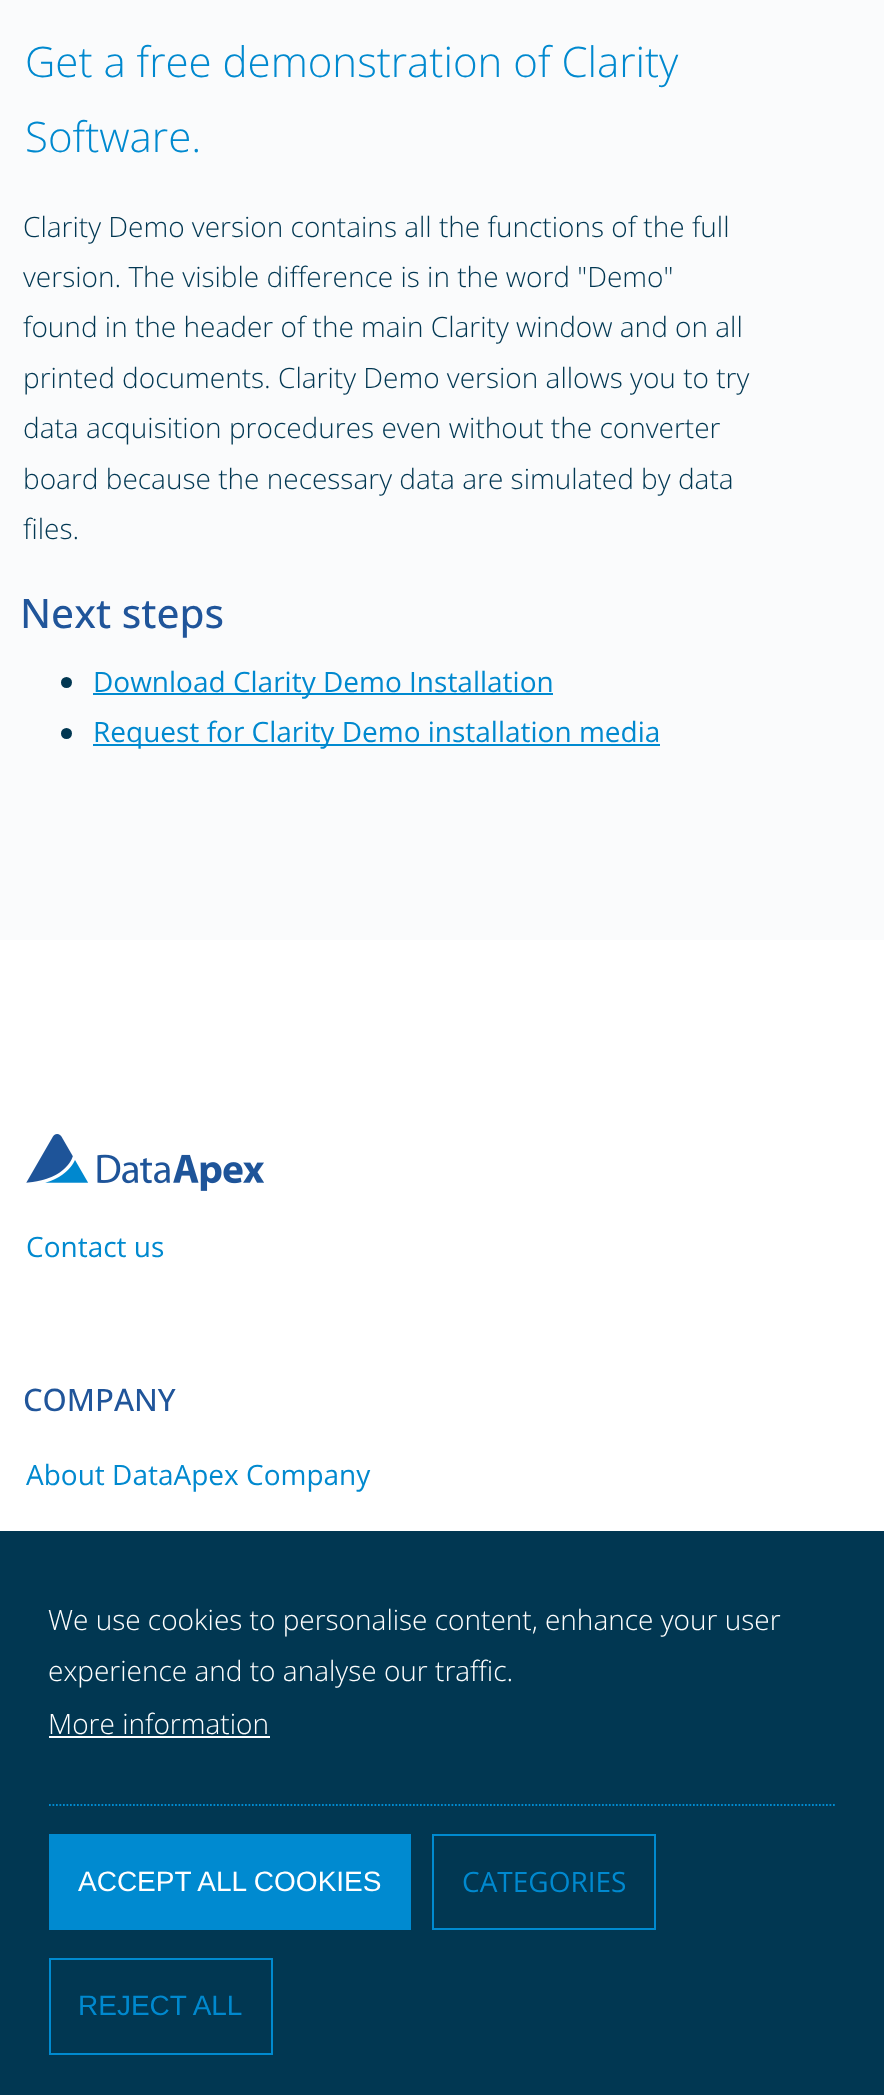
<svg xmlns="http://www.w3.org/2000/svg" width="884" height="2095">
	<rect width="100%" height="100%" fill="#FAFBFC" />
	<g font-family="Open Sans" font-size="42" font-weight="300" fill="#0089CF">
		<text x="25" y="77">Get a free demonstration of Clarity</text>
		<text x="25" y="152">Software.</text>
	</g>
	<g font-family="Open Sans" font-size="28" font-weight="300" fill="#013752">
		<text x="23" y="237">Clarity Demo version contains all the functions of the full</text>
		<text x="23" y="287">version. The visible difference is in the word "Demo"</text>
		<text x="23" y="337">found in the header of the main Clarity window and on all</text>
		<text x="23" y="388">printed documents. Clarity Demo version allows you to try</text>
		<text x="23" y="438">data acquisition procedures even without the converter</text>
		<text x="23" y="489">board because the necessary data are simulated by data</text>
		<text x="23" y="539">files.</text>
	</g>
	<text x="20" y="628" font-family="Open Sans" font-size="40.5" font-weight="500" fill="#20559A">Next steps</text>
	<circle cx="66.5" cy="682.5" r="5.5" fill="#013752" />
	<rect x="93" y="693" width="460" height="2" fill="#008AD0" />
	<text x="93" y="692" font-family="Open Sans" font-size="28" fill="#0089CF">Download Clarity Demo Installation</text>
	<circle cx="66.5" cy="733.5" r="5.5" fill="#013752" />
	<rect x="93" y="744" width="567" height="2" fill="#008AD0" />
	<text x="93" y="742" font-family="Open Sans" font-size="28" fill="#0089CF">Request for Clarity Demo installation media</text>
	<rect x="0" y="940" width="884" height="591" fill="#FFFFFF" />
	<image x="26" y="1134" width="238" height="57" href="assets/img1.png" />
	<text x="26" y="1257" font-family="Open Sans" font-size="28" fill="#0089CF">Contact us</text>
	<text x="23" y="1411" font-family="Open Sans" font-size="31" font-weight="500" fill="#20559A">COMPANY</text>
	<text x="26" y="1485" font-family="Open Sans" font-size="28" fill="#0089CF">About DataApex Company</text>
	<rect x="0" y="1531" width="884" height="564" fill="#013752" />
	<g font-family="Open Sans" font-size="28" font-weight="300" fill="#FFFFFF">
		<text x="48" y="1630">We use cookies to personalise content, enhance your user</text>
		<text x="48" y="1681">experience and to analyse our traffic.</text>
		<text x="48" y="1734">More information</text>
	</g>
	<rect x="49" y="1736" width="221" height="2" fill="#FFFFFF" />
	<path d="M49 1805H836.5" fill="none" stroke="#008AD0" stroke-width="1.8" stroke-dasharray="1.75 1.75" />
	<rect x="49" y="1834" width="362" height="96" fill="#008AD0" />
	<text x="78" y="1891" font-family="Liberation Sans" font-size="28" fill="#FFFFFF">ACCEPT ALL COOKIES</text>
	<rect x="433" y="1835" width="222" height="94" fill="none" stroke="#008AD0" stroke-width="2" />
	<text x="462" y="1892" font-family="Open Sans" font-size="28" fill="#0089CF">CATEGORIES</text>
	<rect x="50" y="1959" width="222" height="95" fill="none" stroke="#008AD0" stroke-width="2" />
	<text x="78" y="2015" font-family="Liberation Sans" font-size="28" fill="#0089CF">REJECT ALL</text>
</svg>
